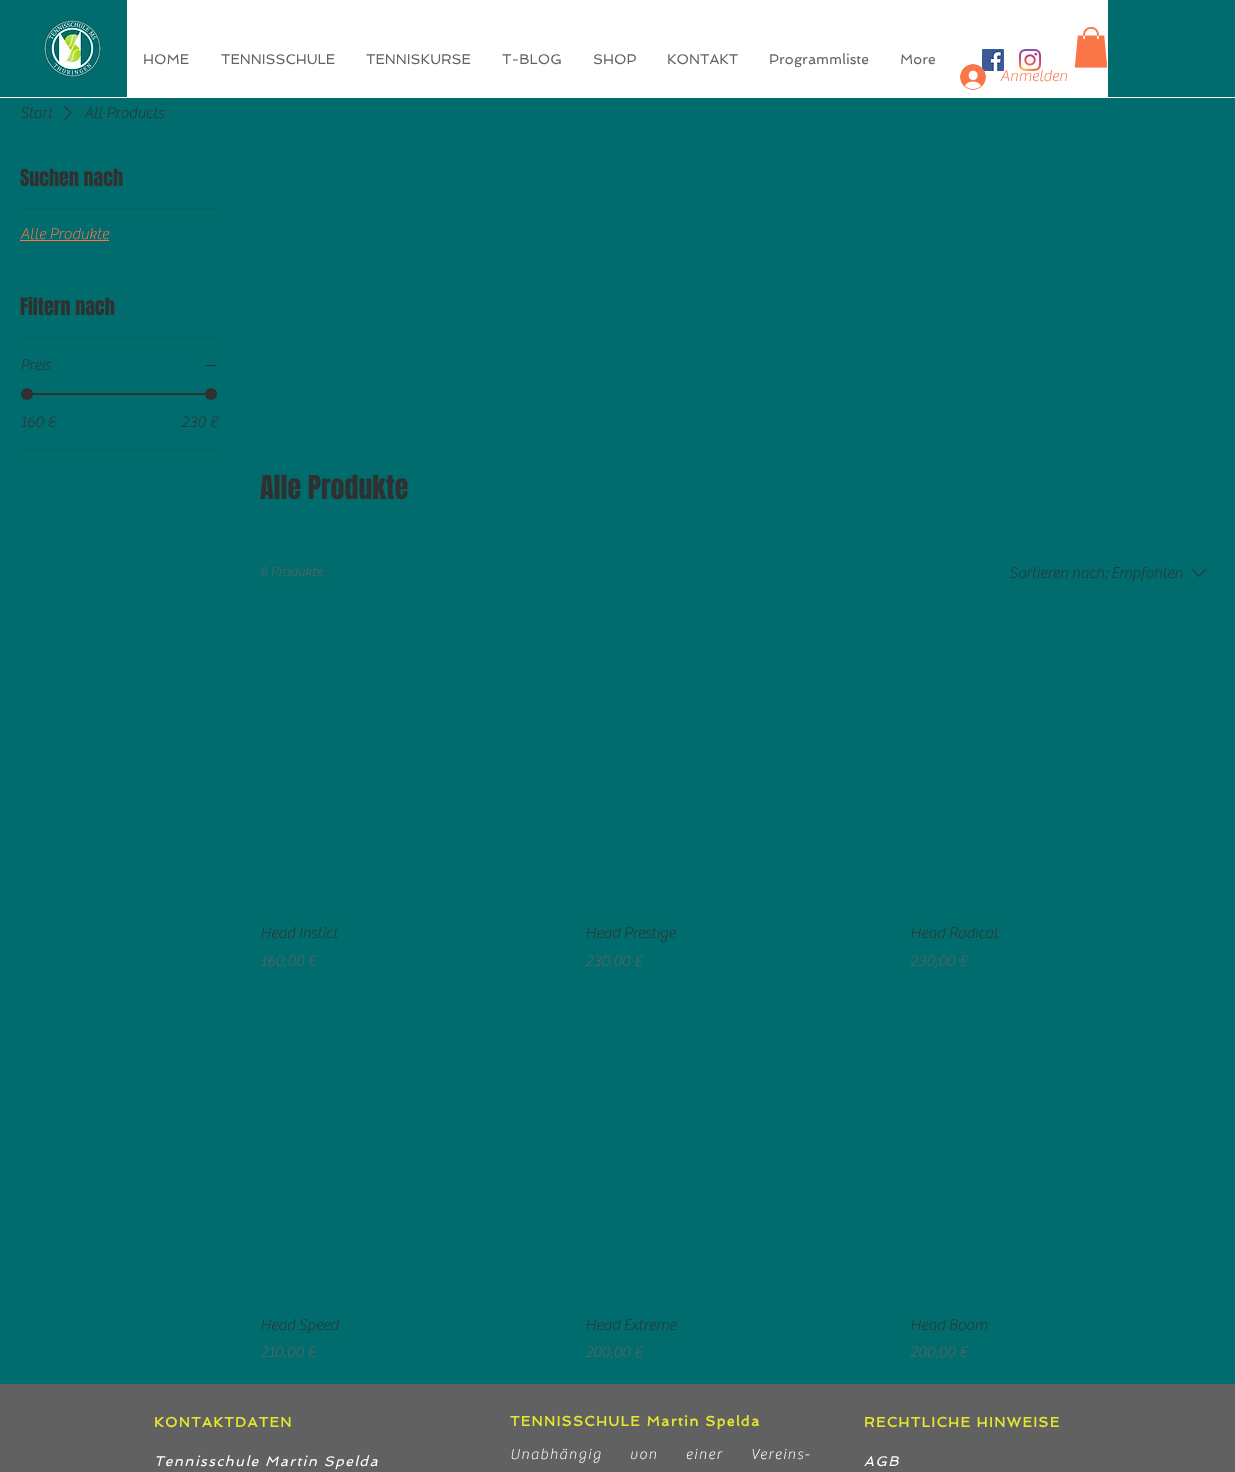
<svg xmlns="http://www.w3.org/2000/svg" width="1235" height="1472">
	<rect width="100%" height="100%" fill="#006C6E" />
	<rect x="0" y="0" width="1235" height="98" fill="#FFFFFF" />
	<rect x="0" y="0" width="127" height="97" fill="#006C6E" />
	<circle cx="72.5" cy="48.5" r="28.5" fill="#303030" />
	<image x="44" y="20" width="57" height="57" href="assets/img1.png" />
	<g font-family="Spinnaker" font-size="14" fill="#616161">
		<text x="143" y="64">HOME</text>
		<text x="221" y="64">TENNISSCHULE</text>
		<text x="366" y="64">TENNISKURSE</text>
		<text x="502" y="64">T-BLOG</text>
		<text x="593" y="64">SHOP</text>
		<text x="667" y="64">KONTAKT</text>
		<text x="769" y="64">Programmliste</text>
		<text x="900" y="64">More</text>
	</g>
	<image x="982" y="49" width="22" height="22" href="assets/img2.png" />
	<image x="1019" y="49" width="22" height="22" href="assets/img3.png" />
	<image x="1074" y="27" width="34" height="41" href="assets/img4.png" />
	<rect x="1108" y="0" width="127" height="97" fill="#006C6E" />
	<image x="960" y="64" width="26" height="26" href="assets/img5.png" />
	<text x="1000" y="81" font-family="'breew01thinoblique'" font-size="16" font-weight="100" fill="#FA7548">Anmelden</text>
	<text x="20" y="118" font-family="'breew01thinoblique'" font-size="16" font-weight="100" fill="#303030">Start</text>
	<image x="64" y="106" width="8" height="14" href="assets/img6.png" />
	<text x="84" y="118" font-family="'breew01thinoblique'" font-size="16" font-weight="100" fill="#303030">All Products</text>
	<rect x="20" y="208" width="200" height="1" fill="#0A6062" />
	<text x="20" y="186" font-family="Anton" font-size="20" fill="#303030">Suchen nach</text>
	<text x="20" y="239" font-family="'breew01thinoblique'" font-size="16" font-weight="100" fill="#FA7548">Alle Produkte</text>
	<rect x="20" y="240" width="89" height="1" fill="#FA7548" />
	<rect x="20" y="337" width="200" height="1" fill="#0A6062" />
	<text x="20" y="315" font-family="Anton" font-size="20" fill="#303030">Filtern nach</text>
	<rect x="20" y="449" width="200" height="1" fill="#0A6062" />
	<text x="20" y="370" font-family="'breew01thinoblique'" font-size="16" font-weight="100" fill="#303030">Preis</text>
	<rect x="205" y="365" width="11" height="1" fill="#303030" />
	<rect x="26" y="393" width="184" height="2" fill="#303030" />
	<circle cx="27" cy="394" r="6" fill="#303030" />
	<circle cx="211" cy="394" r="6" fill="#303030" />
	<g font-family="'breew01thinoblique'" font-size="16" font-weight="100" fill="#303030">
		<text x="20" y="427">160 €</text>
		<text x="181" y="427">230 €</text>
	</g>
	<text x="260" y="499" font-family="Anton" font-size="28" fill="#303030">Alle Produkte</text>
	<text x="260" y="576" font-family="'breew01thinoblique'" font-size="14" font-weight="100" fill="#616161">6 Produkte</text>
	<g font-family="'breew01thinoblique'" font-size="16" font-weight="100" fill="#303030">
		<text x="1009" y="578">Sortieren nach:</text>
		<text x="1111" y="578">Empfohlen</text>
	</g>
	<image x="1192" y="569" width="14" height="8" href="assets/img7.png" />
	<text x="260" y="938" font-family="'breew01thinoblique'" font-size="16" font-weight="100" fill="#303030">Head Instict</text>
	<text x="260" y="966" font-family="'breew01thinoblique'" font-size="16" font-weight="100" fill="#616161">160,00 €</text>
	<text x="585" y="938" font-family="'breew01thinoblique'" font-size="16" font-weight="100" fill="#303030">Head Prestige</text>
	<text x="585" y="966" font-family="'breew01thinoblique'" font-size="16" font-weight="100" fill="#616161">230,00 €</text>
	<text x="910" y="938" font-family="'breew01thinoblique'" font-size="16" font-weight="100" fill="#303030">Head Radical</text>
	<text x="910" y="966" font-family="'breew01thinoblique'" font-size="16" font-weight="100" fill="#616161">230,00 €</text>
	<text x="260" y="1330" font-family="'breew01thinoblique'" font-size="16" font-weight="100" fill="#303030">Head Speed</text>
	<text x="260" y="1357" font-family="'breew01thinoblique'" font-size="16" font-weight="100" fill="#616161">210,00 €</text>
	<text x="585" y="1330" font-family="'breew01thinoblique'" font-size="16" font-weight="100" fill="#303030">Head Extreme</text>
	<text x="585" y="1357" font-family="'breew01thinoblique'" font-size="16" font-weight="100" fill="#616161">200,00 €</text>
	<text x="910" y="1330" font-family="'breew01thinoblique'" font-size="16" font-weight="100" fill="#303030">Head Boom</text>
	<text x="910" y="1357" font-family="'breew01thinoblique'" font-size="16" font-weight="100" fill="#616161">200,00 €</text>
	<rect x="0" y="1384" width="1235" height="88" fill="#616161" />
	<text x="154" y="1427" font-family="Spinnaker" font-size="14" font-weight="700" letter-spacing="1.4" fill="#E6E72E">KONTAKTDATEN</text>
	<text x="154" y="1466" font-family="Spinnaker" font-size="14" font-style="italic" letter-spacing="1.4" fill="#FFFFFF">Tennisschule Martin Spelda</text>
	<text x="510" y="1426" font-family="Spinnaker" font-size="14" font-weight="700" letter-spacing="1.4" fill="#E6E72E">TENNISSCHULE Martin Spelda</text>
	<text x="510" y="1459" word-spacing="23" font-family="'breew01thinoblique'" font-size="15" font-weight="100" letter-spacing="1.5" fill="#FFFFFF">Unabhängig von einer Vereins-</text>
	<text x="864" y="1427" font-family="Spinnaker" font-size="14" font-weight="700" letter-spacing="1.4" fill="#E6E72E">RECHTLICHE HINWEISE</text>
	<text x="864" y="1466" font-family="Spinnaker" font-size="14" font-style="italic" letter-spacing="1.4" fill="#FFFFFF">AGB</text>
</svg>
